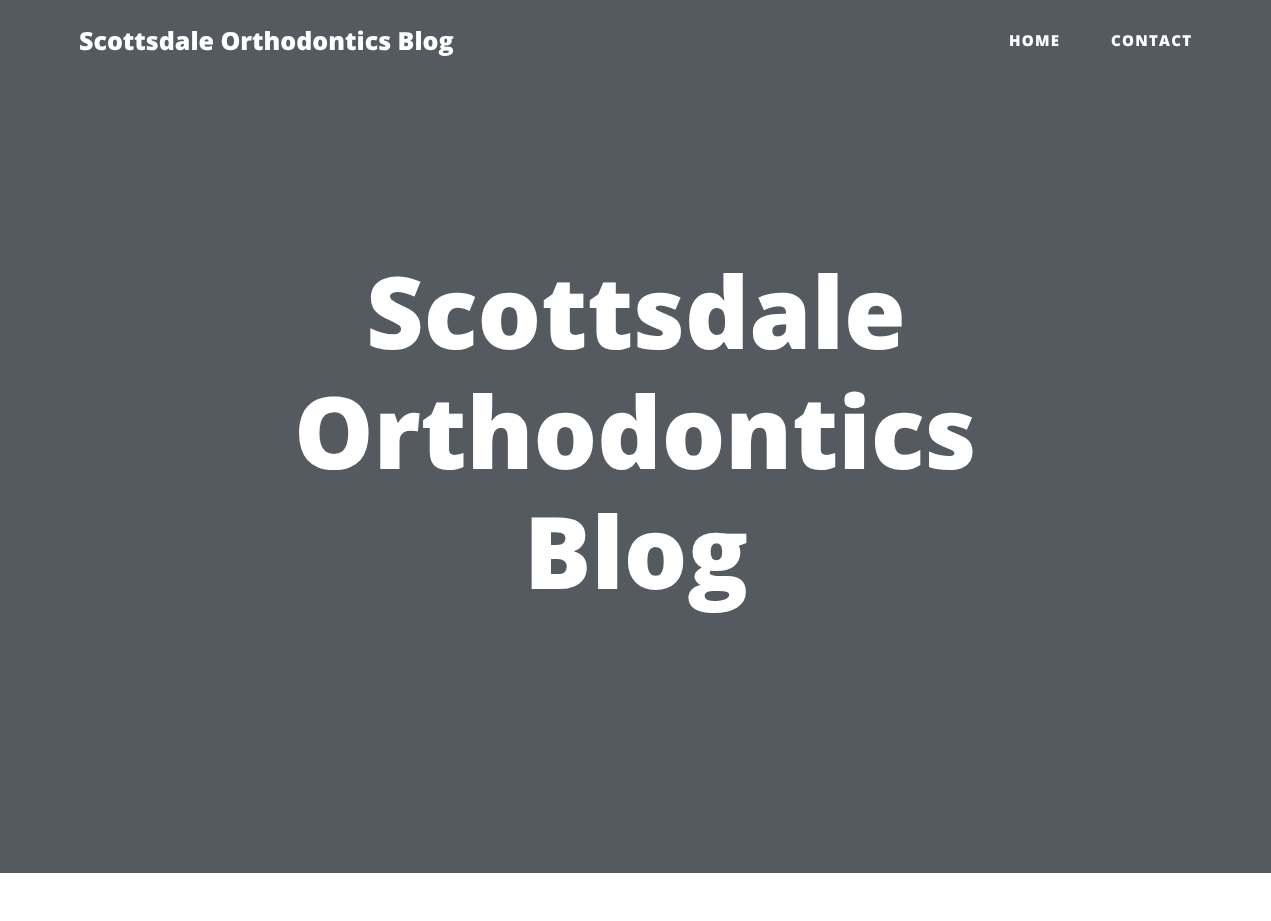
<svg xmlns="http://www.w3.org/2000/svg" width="1271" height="921">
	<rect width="100%" height="100%" fill="#FFFFFF" />
	<rect x="0" y="0" width="1271" height="873" fill="#545A5F" />
	<text x="79" y="50" font-family="Open Sans" font-size="25" font-weight="800" fill="#FFFFFF">Scottsdale Orthodontics Blog</text>
	<g font-family="Open Sans" font-size="15" font-weight="800" letter-spacing="1.25" fill="#FFFFFF">
		<text x="1009" y="46">HOME</text>
		<text x="1111" y="46">CONTACT</text>
	</g>
	<g font-family="Open Sans" font-size="100" font-weight="800" fill="#FFFFFF">
		<text x="366" y="349">Scottsdale</text>
		<text x="294" y="469">Orthodontics</text>
		<text x="524" y="589">Blog</text>
	</g>
</svg>
